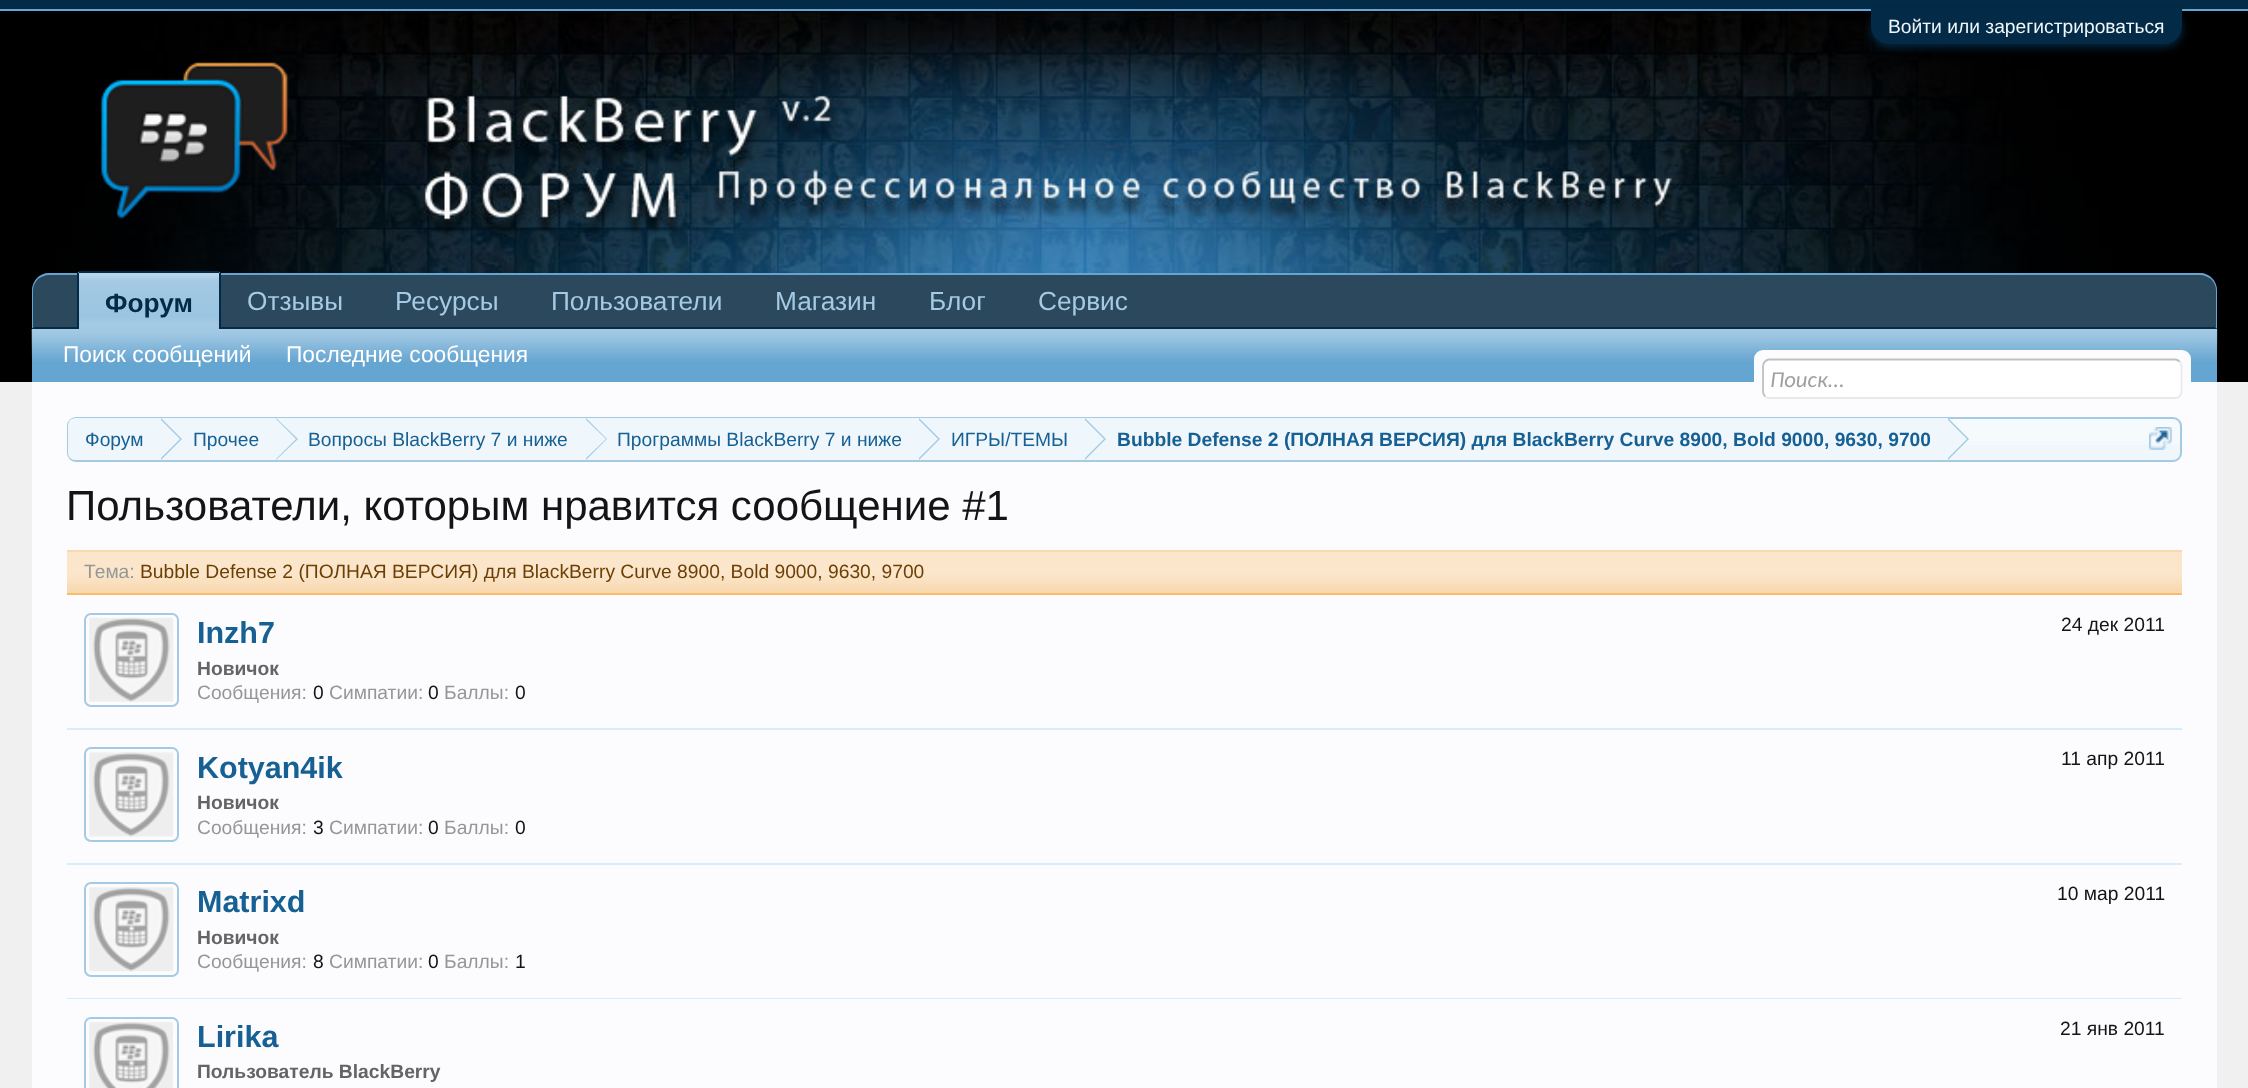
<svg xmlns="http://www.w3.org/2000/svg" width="2248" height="1088">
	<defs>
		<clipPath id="clip1"><rect x="68" y="418" width="2113" height="42" rx="7" /></clipPath>
		<clipPath id="clip2"><rect x="1117" y="418" width="813" height="42" /></clipPath>
	</defs>
	<rect width="100%" height="100%" fill="#F0F0F0" />
	<rect x="0" y="0" width="2248" height="9" fill="#032A46" />
	<rect x="0" y="9" width="2248" height="2" fill="#65A5D1" />
	<rect x="0" y="11" width="2248" height="371" fill="#000000" />
	<image x="0" y="11" width="2170" height="367" href="assets/img1.png" />
	<rect x="1871" y="12" width="311" height="35" rx="17.5" fill="#032A46" filter="blur(4.5px)" />
	<path d="M1871 9H2182V26.5C2182 36 2174 44 2164.5 44H1888.5C1879 44 1871 36 1871 26.5Z" fill="#032A46" />
	<text x="1888" y="33" font-family="Liberation Sans" font-size="19.25" fill="#F0F7FC">Войти или зарегистрироваться</text>
	<image x="101" y="61" width="188" height="158" href="assets/img2.png" />
	<path d="M50 273H2199C2209 273 2217 281 2217 291V329H32V291C32 281 40 273 50 273Z" fill="#2B485C" />
	<path d="M49 273C44 273 40 275 37 278L38 279C41 277 45 275 49 275H2200C2204 275 2208 277 2211 279L2212 278C2209 275 2205 273 2200 273Z" fill="#65A5D1" />
	<path d="M2212 278C2215 281 2217 286 2217 290V329L2215 327H2216V290C2216 286 2214 282 2211 279Z" fill="#65A5D1" />
	<path d="M32 329H2217L2215 327H34Z" fill="#032A46" />
	<path d="M37 278C34 281 32 286 32 290V328L34 327H33V290C33 286 35 282 38 279Z" fill="#65A5D1" />
	<g font-family="Liberation Sans" font-size="26.25" fill="#A5CAE4">
		<text x="247" y="310">Отзывы</text>
		<text x="395" y="310">Ресурсы</text>
		<text x="551" y="310">Пользователи</text>
		<text x="775" y="310">Магазин</text>
		<text x="929" y="310">Блог</text>
		<text x="1038" y="310">Сервис</text>
	</g>
	<path d="M81 271H217C219 271 221 273 221 275V329H77V275C77 273 79 271 81 271Z" fill="#65A5D1" />
	<image x="79" y="273" width="140" height="56" href="assets/img3.png" />
	<rect x="79" y="271" width="140" height="2" fill="#032A46" />
	<rect x="219" y="273" width="2" height="56" fill="#032A46" />
	<rect x="77" y="273" width="2" height="56" fill="#032A46" />
	<text x="105" y="312" font-family="Liberation Sans" font-size="26.25" font-weight="700" fill="#032A46">Форум</text>
	<rect x="32" y="329" width="2185" height="53" fill="#65A5D1" />
	<image x="31" y="329" width="2187" height="33" href="assets/img4.png" />
	<g font-family="Liberation Sans" font-size="22.75" fill="#FFFFFF">
		<text x="63" y="362">Поиск сообщений</text>
		<text x="286" y="362">Последние сообщения</text>
	</g>
	<rect x="32" y="382" width="2185" height="706" fill="#FCFCFF" />
	<rect x="1754" y="350" width="437" height="49" rx="9" fill="#FCFCFF" />
	<rect x="1762" y="359" width="420" height="40" rx="7" fill="#FFFFFF" />
	<path d="M2179.5 361.5C2180.5 362.5 2181.5 364 2181.5 366V392C2181.5 393.5 2180.5 395 2179.5 396.5C2178.5 397.5 2177 398 2175 398H1769C1767.5 398 1766 397.5 1765 396.5" fill="none" stroke="#E9E9E9" stroke-width="1.8" />
	<path d="M1765 396.5C1764 395 1763 393.5 1763 392V366C1763 364 1764 362.5 1765 361.5C1766 360.5 1767.5 359.5 1769 359.5H2175C2177 359.5 2178.5 360.5 2179.5 361.5" fill="none" stroke="#C0C0C0" stroke-width="1.8" />
	<text x="1770" y="387" font-family="Carlito" font-size="22.75" font-style="italic" fill="#A0A0A0">Поиск...</text>
	<rect x="67" y="417" width="2115" height="45" rx="9" fill="#F0F7FC" />
	<image x="67" y="419" width="2115" height="26" href="assets/img5.png" />
	<rect x="68" y="418" width="2113" height="43" rx="8" fill="none" stroke="#A5CAE4" stroke-width="2" />
	<g clip-path="url(#clip1)">
		<path d="M75 418H161V462H75C71 462 68 459 68 455V425C68 421 71 418 75 418Z" fill="#F0F7FC" />
	</g>
	<text x="85" y="446" font-family="Liberation Sans" font-size="19.25" fill="#176093">Форум</text>
	<rect x="161" y="418" width="1787" height="27" fill="#F0F7FC" />
	<path d="M161 460V418L182 439Z" fill="#A5CAE4" />
	<path d="M159 460V418L180 439Z" fill="#F0F7FC" />
	<text x="193" y="446" font-family="Liberation Sans" font-size="19.25" fill="#176093">Прочее</text>
	<path d="M276 460V418L298 439Z" fill="#A5CAE4" />
	<path d="M275 460V418L296 439Z" fill="#F0F7FC" />
	<text x="308" y="446" font-family="Liberation Sans" font-size="19.25" fill="#176093">Вопросы BlackBerry 7 и ниже</text>
	<path d="M586 460V418L607 439Z" fill="#A5CAE4" />
	<path d="M584 460V418L606 439Z" fill="#F0F7FC" />
	<text x="617" y="446" font-family="Liberation Sans" font-size="19.25" fill="#176093">Программы BlackBerry 7 и ниже</text>
	<path d="M919 460V418L940 439Z" fill="#A5CAE4" />
	<path d="M917 460V418L938 439Z" fill="#F0F7FC" />
	<text x="951" y="446" font-family="Liberation Sans" font-size="19.25" fill="#176093">ИГРЫ/ТЕМЫ</text>
	<path d="M1085 460V418L1106 439Z" fill="#A5CAE4" />
	<path d="M1083 460V418L1104 439Z" fill="#F0F7FC" />
	<g clip-path="url(#clip2)">
		<text x="1117" y="446" font-family="Liberation Sans" font-size="19.25" font-weight="700" fill="#176093">Bubble Defense 2 (ПОЛНАЯ ВЕРСИЯ) для BlackBerry Curve 8900, Bold 9000, 9630, 9700</text>
	</g>
	<path d="M1948 460V418L1969 439Z" fill="#A5CAE4" />
	<path d="M1946 460V418L1967 439Z" fill="#F0F7FC" />
	<image x="2149" y="427" width="23" height="23" href="assets/img6.png" />
	<text x="66" y="520" font-family="Liberation Sans" font-size="42" fill="#141414">Пользователи, которым нравится сообщение #1</text>
	<rect x="67" y="550" width="2115" height="43" fill="#F9D9B0" />
	<image x="67" y="552" width="2115" height="37" href="assets/img7.png" />
	<rect x="67" y="593" width="2115" height="2" fill="#F9BC6D" />
	<text x="84" y="578" font-family="Liberation Sans" font-size="19.25" fill="#969696">Тема:</text>
	<text x="140" y="578" font-family="Liberation Sans" font-size="19.25" fill="#6D3F03">Bubble Defense 2 (ПОЛНАЯ ВЕРСИЯ) для BlackBerry Curve 8900, Bold 9000, 9630, 9700</text>
	<rect x="67" y="728" width="2115" height="2" fill="#D7EDFC" />
	<image x="89" y="617" width="85" height="85" href="assets/img8.png" />
	<rect x="85" y="614" width="93" height="92" rx="6" fill="none" stroke="#A5CAE4" stroke-width="2" />
	<text x="197" y="643" font-family="Liberation Sans" font-size="30.5" font-weight="700" fill="#176093">Inzh7</text>
	<text x="197" y="675" font-family="Liberation Sans" font-size="19.25" font-weight="700" fill="#646464">Новичок</text>
	<text x="197" y="699" font-family="Liberation Sans" font-size="19.25" fill="#969696">Сообщения:</text>
	<text x="313" y="699" font-family="Liberation Sans" font-size="19.25" fill="#141414">0</text>
	<text x="329" y="699" font-family="Liberation Sans" font-size="19.25" fill="#969696">Симпатии:</text>
	<text x="428" y="699" font-family="Liberation Sans" font-size="19.25" fill="#141414">0</text>
	<text x="444" y="699" font-family="Liberation Sans" font-size="19.25" fill="#969696">Баллы:</text>
	<g font-family="Liberation Sans" font-size="19.25" fill="#141414">
		<text x="515" y="699">0</text>
		<text x="2061" y="631">24 дек 2011</text>
	</g>
	<rect x="67" y="863" width="2115" height="2" fill="#D7EDFC" />
	<image x="89" y="752" width="85" height="85" href="assets/img9.png" />
	<rect x="85" y="748" width="93" height="93" rx="6" fill="none" stroke="#A5CAE4" stroke-width="2" />
	<text x="197" y="778" font-family="Liberation Sans" font-size="30.5" font-weight="700" fill="#176093">Kotyan4ik</text>
	<text x="197" y="809" font-family="Liberation Sans" font-size="19.25" font-weight="700" fill="#646464">Новичок</text>
	<text x="197" y="834" font-family="Liberation Sans" font-size="19.25" fill="#969696">Сообщения:</text>
	<text x="313" y="834" font-family="Liberation Sans" font-size="19.25" fill="#141414">3</text>
	<text x="329" y="834" font-family="Liberation Sans" font-size="19.25" fill="#969696">Симпатии:</text>
	<text x="428" y="834" font-family="Liberation Sans" font-size="19.25" fill="#141414">0</text>
	<text x="444" y="834" font-family="Liberation Sans" font-size="19.25" fill="#969696">Баллы:</text>
	<g font-family="Liberation Sans" font-size="19.25" fill="#141414">
		<text x="515" y="834">0</text>
		<text x="2061" y="765">11 апр 2011</text>
	</g>
	<rect x="67" y="998" width="2115" height="1" fill="#D7EDFC" />
	<image x="89" y="887" width="85" height="85" href="assets/img10.png" />
	<rect x="85" y="883" width="93" height="93" rx="6" fill="none" stroke="#A5CAE4" stroke-width="2" />
	<text x="197" y="912" font-family="Liberation Sans" font-size="30.5" font-weight="700" fill="#176093">Matrixd</text>
	<text x="197" y="944" font-family="Liberation Sans" font-size="19.25" font-weight="700" fill="#646464">Новичок</text>
	<text x="197" y="968" font-family="Liberation Sans" font-size="19.25" fill="#969696">Сообщения:</text>
	<text x="313" y="968" font-family="Liberation Sans" font-size="19.25" fill="#141414">8</text>
	<text x="329" y="968" font-family="Liberation Sans" font-size="19.25" fill="#969696">Симпатии:</text>
	<text x="428" y="968" font-family="Liberation Sans" font-size="19.25" fill="#141414">0</text>
	<text x="444" y="968" font-family="Liberation Sans" font-size="19.25" fill="#969696">Баллы:</text>
	<g font-family="Liberation Sans" font-size="19.25" fill="#141414">
		<text x="515" y="968">1</text>
		<text x="2057" y="900">10 мар 2011</text>
	</g>
	<image x="89" y="1022" width="84" height="66" href="assets/img11.png" />
	<rect x="85" y="1018" width="93" height="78" rx="6" fill="none" stroke="#A5CAE4" stroke-width="2" />
	<text x="197" y="1047" font-family="Liberation Sans" font-size="30.5" font-weight="700" fill="#176093">Lirika</text>
	<text x="197" y="1078" font-family="Liberation Sans" font-size="19.25" font-weight="700" fill="#646464">Пользователь BlackBerry</text>
	<text x="2060" y="1035" font-family="Liberation Sans" font-size="19.25" fill="#141414">21 янв 2011</text>
</svg>
